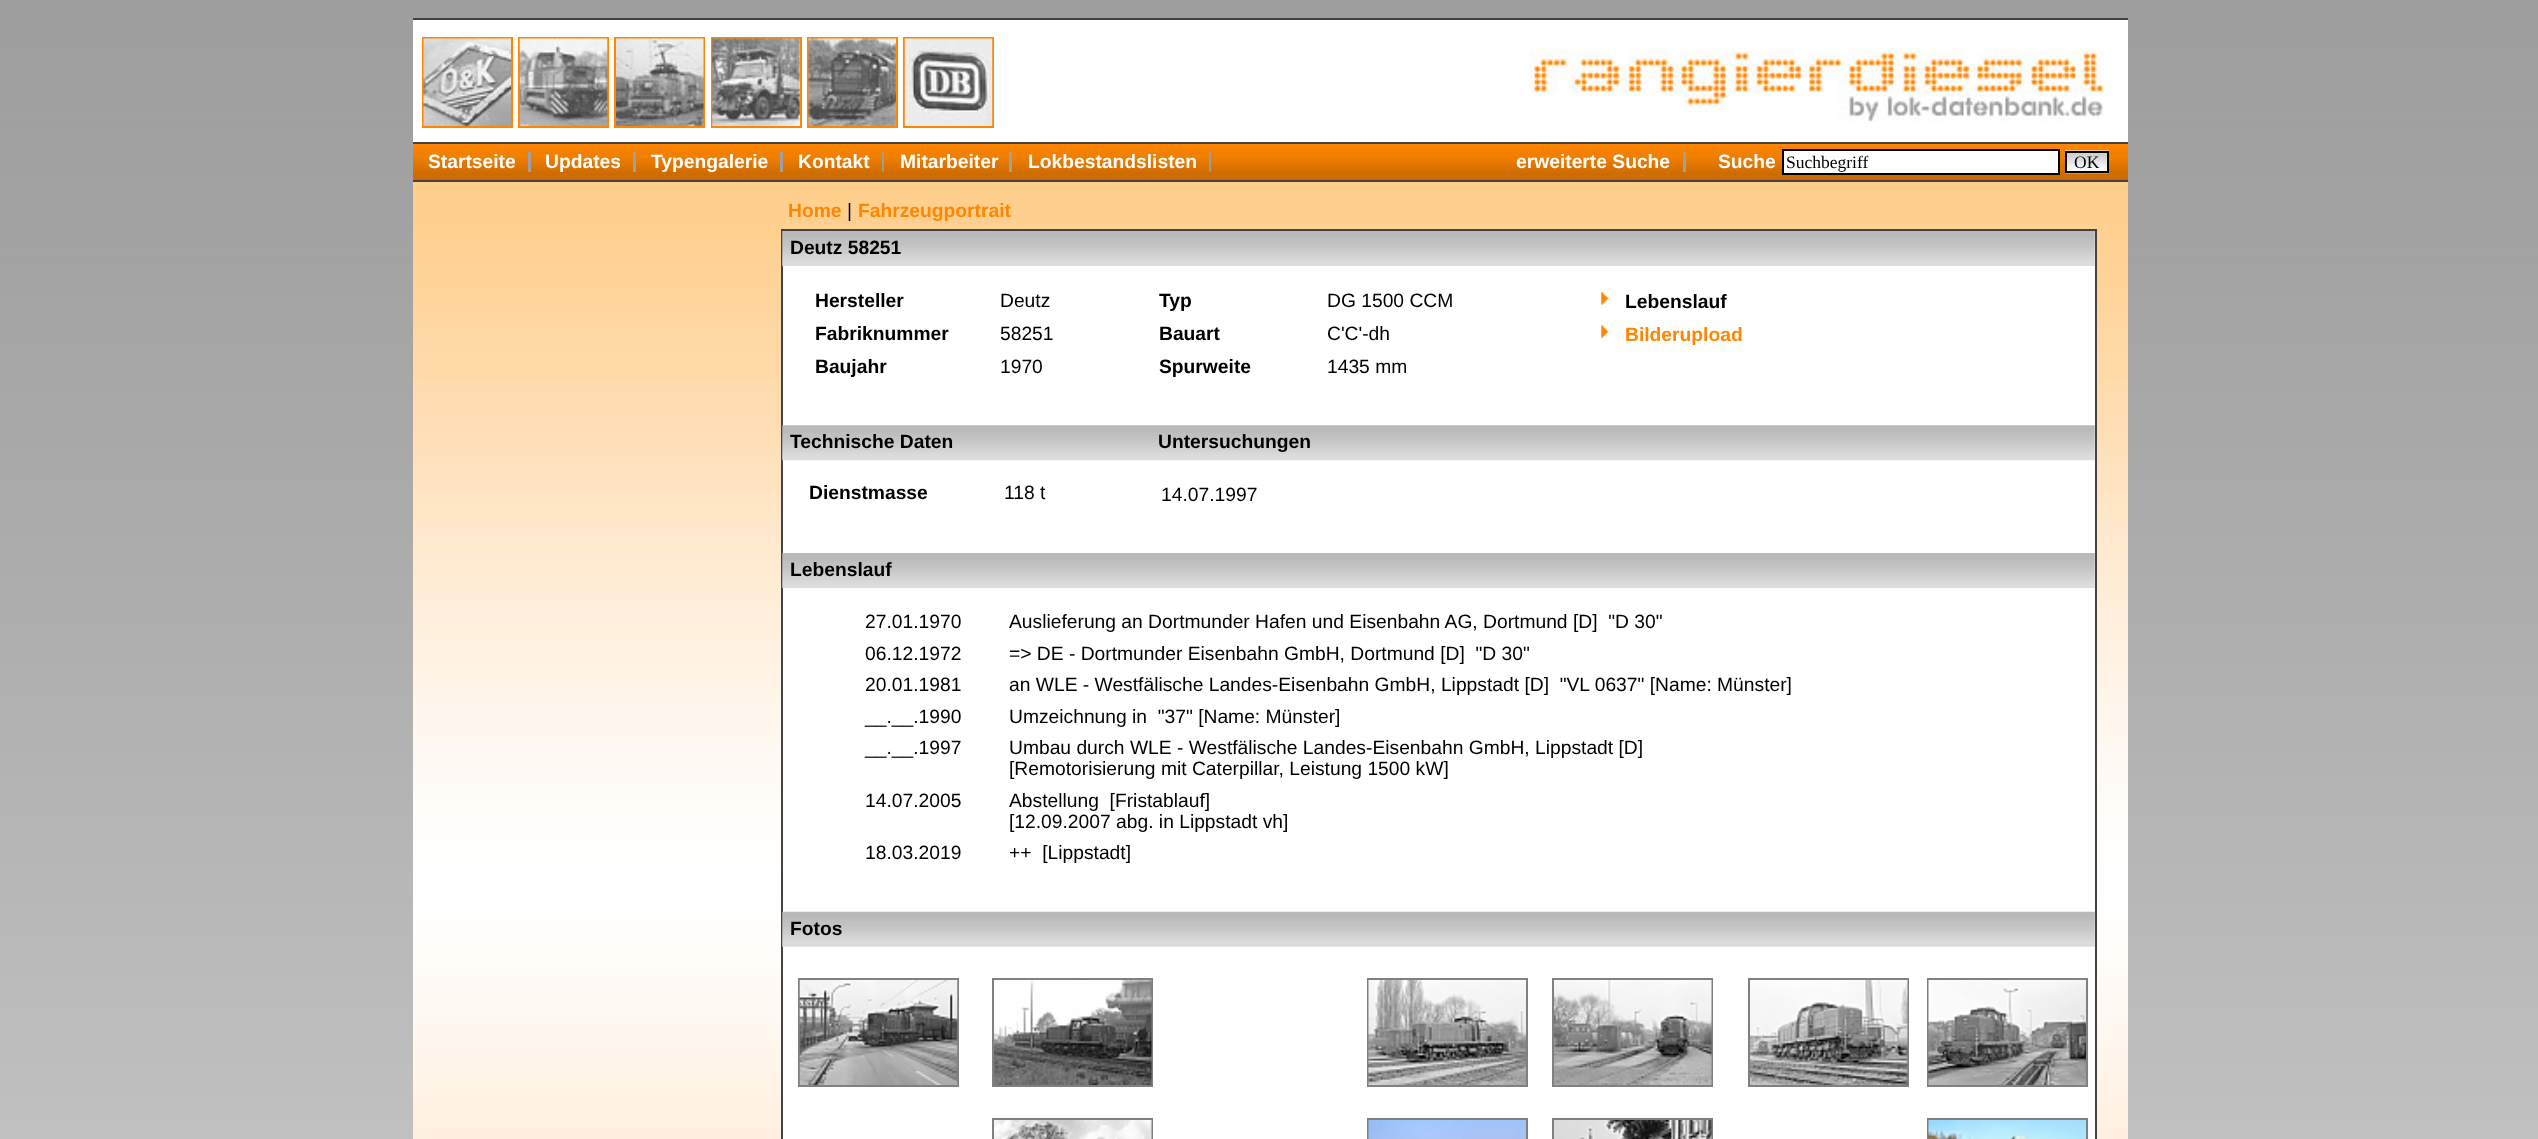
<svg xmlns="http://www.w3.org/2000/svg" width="2538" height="1139">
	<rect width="100%" height="100%" fill="#FFFFFF" />
	<image x="0" y="0" width="2538" height="1139" href="assets/img1.png" />
	<rect x="413" y="20" width="1715" height="122" fill="#FFFFFF" />
	<rect x="413" y="18" width="1715" height="2" fill="#434343" />
	<rect x="423" y="38" width="89" height="89" fill="none" stroke="#FF8600" stroke-width="2" />
	<rect x="519" y="38" width="89" height="89" fill="none" stroke="#FF8600" stroke-width="2" />
	<rect x="615" y="38" width="89" height="89" fill="none" stroke="#FF8600" stroke-width="2" />
	<rect x="712" y="38" width="89" height="89" fill="none" stroke="#FF8600" stroke-width="2" />
	<rect x="808" y="38" width="89" height="89" fill="none" stroke="#FF8600" stroke-width="2" />
	<rect x="904" y="38" width="89" height="89" fill="none" stroke="#FF8600" stroke-width="2" />
	<image x="423" y="38" width="88" height="88" href="assets/img2.png" />
	<image x="519" y="38" width="89" height="88" href="assets/img3.png" />
	<image x="616" y="38" width="88" height="88" href="assets/img4.png" />
	<image x="712" y="38" width="88" height="88" href="assets/img5.png" />
	<image x="808" y="38" width="88" height="88" href="assets/img6.png" />
	<image x="904" y="38" width="89" height="88" href="assets/img7.png" />
	<image x="1529" y="50" width="575" height="72" href="assets/img8.png" />
	<image x="413" y="144" width="1715" height="36" href="assets/img9.png" />
	<rect x="413" y="142" width="1715" height="2" fill="#434343" />
	<text x="428" y="168" font-family="Liberation Sans" font-size="19.25" font-weight="700" fill="#FFFFFF">Startseite</text>
	<rect x="528" y="152" width="3" height="20" fill="#A0A0A0" />
	<text x="545" y="168" font-family="Liberation Sans" font-size="19.25" font-weight="700" fill="#FFFFFF">Updates</text>
	<rect x="633" y="152" width="3" height="20" fill="#A0A0A0" />
	<text x="651" y="168" font-family="Liberation Sans" font-size="19.25" font-weight="700" fill="#FFFFFF">Typengalerie</text>
	<rect x="780" y="152" width="3" height="20" fill="#A0A0A0" />
	<text x="798" y="168" font-family="Liberation Sans" font-size="19.25" font-weight="700" fill="#FFFFFF">Kontakt</text>
	<image x="882" y="152" width="2" height="20" href="assets/img10.png" />
	<text x="900" y="168" font-family="Liberation Sans" font-size="19.25" font-weight="700" fill="#FFFFFF">Mitarbeiter</text>
	<rect x="1009" y="152" width="3" height="20" fill="#A0A0A0" />
	<text x="1028" y="168" font-family="Liberation Sans" font-size="19.25" font-weight="700" fill="#FFFFFF">Lokbestandslisten</text>
	<image x="1209" y="152" width="2" height="20" href="assets/img11.png" />
	<text x="1516" y="168" font-family="Liberation Sans" font-size="19.25" font-weight="700" fill="#FFFFFF">erweiterte Suche</text>
	<rect x="1683" y="152" width="3" height="20" fill="#A0A0A0" />
	<text x="1718" y="168" font-family="Liberation Sans" font-size="19.25" font-weight="700" fill="#FFFFFF">Suche</text>
	<rect x="1783" y="150" width="276" height="24" fill="#FFFFFF" stroke="#000000" stroke-width="2" />
	<text x="1786" y="168" font-family="Liberation Serif" font-size="17.5" fill="#000000">Suchbegriff</text>
	<image x="2065" y="150" width="44" height="24" href="assets/img12.png" />
	<rect x="2066" y="152" width="42" height="20" fill="none" stroke="#000000" stroke-width="2" />
	<text x="2074" y="168" font-family="Liberation Serif" font-size="17.5" fill="#000000">OK</text>
	<image x="413" y="182" width="1715" height="957" href="assets/img13.png" />
	<rect x="413" y="180" width="1715" height="2" fill="#434343" />
	<text x="788" y="217" font-family="Liberation Sans" font-size="19.25" font-weight="700" fill="#FF8600">Home</text>
	<text x="847" y="217" font-family="Liberation Sans" font-size="19.25" fill="#000000">|</text>
	<text x="858" y="217" font-family="Liberation Sans" font-size="19.25" font-weight="700" fill="#FF8600">Fahrzeugportrait</text>
	<rect x="782" y="230" width="1314" height="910" fill="#FFFFFF" stroke="#434343" stroke-width="2" />
	<image x="782" y="231" width="1313" height="35" href="assets/img14.png" />
	<g font-family="Liberation Sans" font-size="19.25" font-weight="700" fill="#000000">
		<text x="790" y="254">Deutz 58251</text>
		<text x="815" y="307">Hersteller</text>
	</g>
	<text x="1000" y="307" font-family="Liberation Sans" font-size="19.25" fill="#000000">Deutz</text>
	<text x="1159" y="307" font-family="Liberation Sans" font-size="19.25" font-weight="700" fill="#000000">Typ</text>
	<text x="1327" y="307" font-family="Liberation Sans" font-size="19.25" fill="#000000">DG 1500 CCM</text>
	<image x="1601" y="291" width="8" height="14" href="assets/img15.png" />
	<g font-family="Liberation Sans" font-size="19.25" font-weight="700" fill="#000000">
		<text x="1625" y="308">Lebenslauf</text>
		<text x="815" y="340">Fabriknummer</text>
	</g>
	<text x="1000" y="340" font-family="Liberation Sans" font-size="19.25" fill="#000000">58251</text>
	<text x="1159" y="340" font-family="Liberation Sans" font-size="19.25" font-weight="700" fill="#000000">Bauart</text>
	<text x="1327" y="340" font-family="Liberation Sans" font-size="19.25" fill="#000000">C'C'-dh</text>
	<image x="1601" y="325" width="8" height="14" href="assets/img16.png" />
	<text x="1625" y="341" font-family="Liberation Sans" font-size="19.25" font-weight="700" fill="#FF8600">Bilderupload</text>
	<text x="815" y="373" font-family="Liberation Sans" font-size="19.25" font-weight="700" fill="#000000">Baujahr</text>
	<text x="1000" y="373" font-family="Liberation Sans" font-size="19.25" fill="#000000">1970</text>
	<text x="1159" y="373" font-family="Liberation Sans" font-size="19.25" font-weight="700" fill="#000000">Spurweite</text>
	<text x="1327" y="373" font-family="Liberation Sans" font-size="19.25" fill="#000000">1435 mm</text>
	<image x="782" y="425" width="1313" height="36" href="assets/img17.png" />
	<g font-family="Liberation Sans" font-size="19.25" font-weight="700" fill="#000000">
		<text x="790" y="448">Technische Daten</text>
		<text x="1158" y="448">Untersuchungen</text>
		<text x="809" y="499">Dienstmasse</text>
	</g>
	<g font-family="Liberation Sans" font-size="19.25" fill="#000000">
		<text x="1004" y="499">118 t</text>
		<text x="1161" y="501">14.07.1997</text>
	</g>
	<image x="782" y="553" width="1313" height="35" href="assets/img14.png" />
	<text x="790" y="576" font-family="Liberation Sans" font-size="19.25" font-weight="700" fill="#000000">Lebenslauf</text>
	<g font-family="Liberation Sans" font-size="19.25" fill="#000000">
		<text x="865" y="628">27.01.1970</text>
		<text x="1009" y="628" xml:space="preserve">Auslieferung an Dortmunder Hafen und Eisenbahn AG, Dortmund [D]  "D 30"</text>
		<text x="865" y="660">06.12.1972</text>
		<text x="1009" y="660" xml:space="preserve">=&gt; DE - Dortmunder Eisenbahn GmbH, Dortmund [D]  "D 30"</text>
		<text x="865" y="691">20.01.1981</text>
		<text x="1009" y="691" xml:space="preserve">an WLE - Westfälische Landes-Eisenbahn GmbH, Lippstadt [D]  "VL 0637" [Name: Münster]</text>
		<text x="865" y="723">__.__.1990</text>
		<text x="1009" y="723" xml:space="preserve">Umzeichnung in  "37" [Name: Münster]</text>
		<text x="865" y="754">__.__.1997</text>
		<text x="1009" y="754">Umbau durch WLE - Westfälische Landes-Eisenbahn GmbH, Lippstadt [D]</text>
		<text x="1009" y="775">[Remotorisierung mit Caterpillar, Leistung 1500 kW]</text>
		<text x="865" y="807">14.07.2005</text>
		<text x="1009" y="807" xml:space="preserve">Abstellung  [Fristablauf]</text>
		<text x="1009" y="828">[12.09.2007 abg. in Lippstadt vh]</text>
		<text x="865" y="859">18.03.2019</text>
		<text x="1009" y="859" xml:space="preserve">++  [Lippstadt]</text>
	</g>
	<image x="782" y="911" width="1313" height="36" href="assets/img18.png" />
	<text x="790" y="935" font-family="Liberation Sans" font-size="19.25" font-weight="700" fill="#000000">Fotos</text>
	<rect x="799" y="979" width="159" height="107" fill="none" stroke="#808080" stroke-width="2" />
	<image x="799" y="980" width="159" height="105" href="assets/img19.png" />
	<rect x="993" y="979" width="159" height="107" fill="none" stroke="#808080" stroke-width="2" />
	<image x="994" y="980" width="158" height="105" href="assets/img20.png" />
	<rect x="1368" y="979" width="159" height="107" fill="none" stroke="#808080" stroke-width="2" />
	<image x="1368" y="980" width="158" height="105" href="assets/img21.png" />
	<rect x="1553" y="979" width="159" height="107" fill="none" stroke="#808080" stroke-width="2" />
	<image x="1554" y="980" width="158" height="105" href="assets/img22.png" />
	<rect x="1749" y="979" width="159" height="107" fill="none" stroke="#808080" stroke-width="2" />
	<image x="1750" y="980" width="158" height="105" href="assets/img23.png" />
	<rect x="1928" y="979" width="159" height="107" fill="none" stroke="#808080" stroke-width="2" />
	<image x="1928" y="980" width="158" height="105" href="assets/img24.png" />
	<rect x="993" y="1119" width="159" height="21" fill="none" stroke="#808080" stroke-width="2" />
	<image x="994" y="1120" width="158" height="19" href="assets/img25.png" />
	<rect x="1368" y="1119" width="159" height="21" fill="none" stroke="#808080" stroke-width="2" />
	<image x="1368" y="1120" width="158" height="19" href="assets/img26.png" />
	<rect x="1553" y="1119" width="159" height="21" fill="none" stroke="#808080" stroke-width="2" />
	<image x="1554" y="1120" width="158" height="19" href="assets/img27.png" />
	<rect x="1928" y="1119" width="159" height="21" fill="none" stroke="#808080" stroke-width="2" />
	<image x="1928" y="1120" width="158" height="19" href="assets/img28.png" />
</svg>
